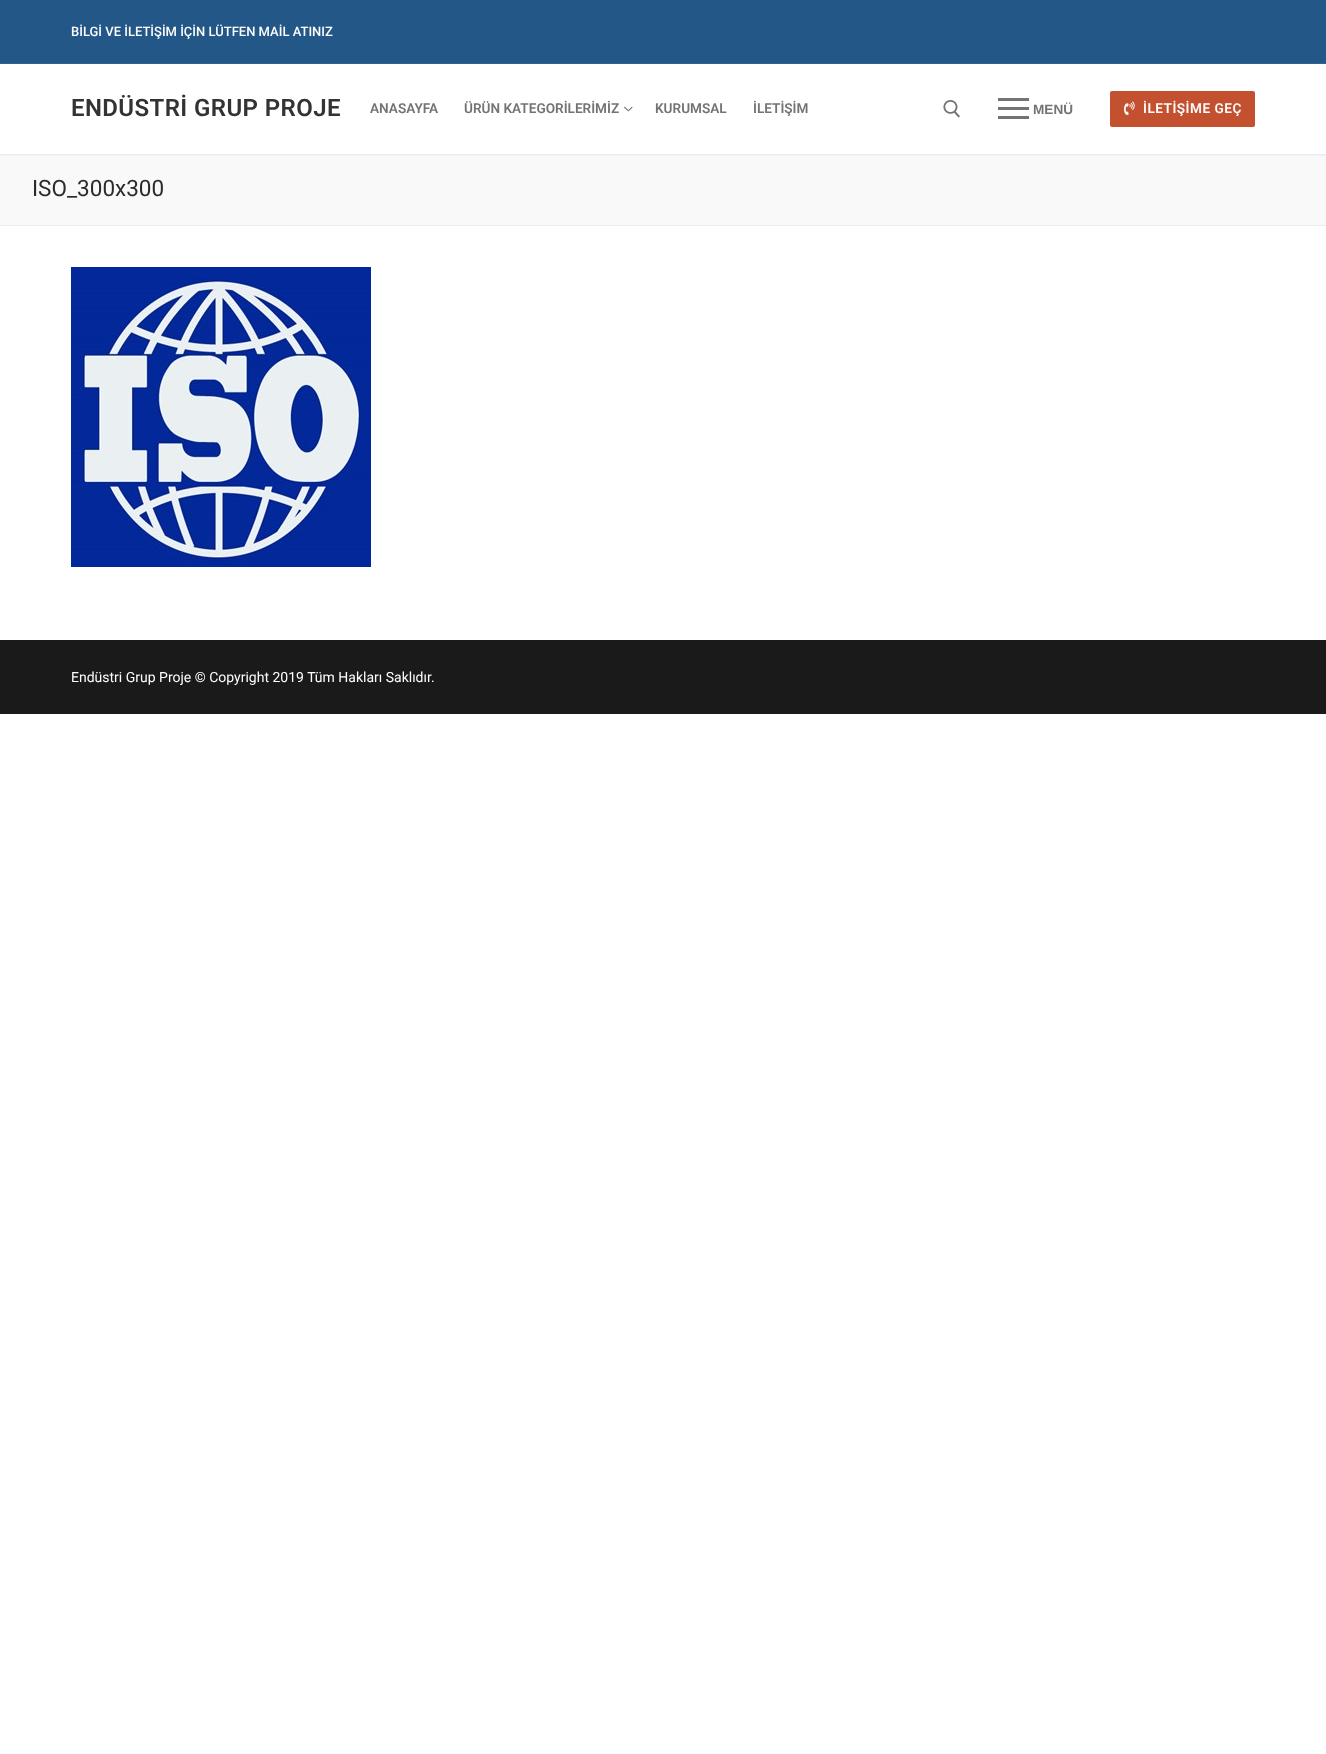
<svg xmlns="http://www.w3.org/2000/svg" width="1326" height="1754">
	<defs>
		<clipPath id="clip1"><path d="M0 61H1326V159H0ZM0 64H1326V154H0Z" clip-rule="evenodd" /></clipPath>
	</defs>
	<rect width="100%" height="100%" fill="#FFFFFF" />
	<rect x="0" y="0" width="1326" height="64" fill="#235787" />
	<text x="71" y="36" font-family="Roboto" font-size="13" font-weight="500" fill="#FDFDFE">BİLGİ VE İLETİŞİM İÇİN LÜTFEN MAİL ATINIZ</text>
	<rect x="0" y="154" width="1326" height="71" fill="#F9F9F9" />
	<g clip-path="url(#clip1)">
		<rect x="0" y="65" width="1326" height="90" fill="#E1E5EA" filter="blur(1px)" />
	</g>
	<text x="71" y="116" font-family="Roboto" font-size="24" font-weight="600" letter-spacing="0.4" fill="#333333">ENDÜSTRİ GRUP PROJE</text>
	<g font-family="Roboto" font-size="13.6" font-weight="600" fill="#737373">
		<text x="370" y="113">ANASAYFA</text>
		<text x="464" y="113">ÜRÜN KATEGORİLERİMİZ</text>
	</g>
	<path d="M628.5 111.5L624 107.5L624.5 106.5L628.5 110Z" fill="#737373" />
	<path d="M632.5 107.5L628.5 111.5V110L632 106.5Z" fill="#000000" fill-opacity="0.55" />
	<g font-family="Roboto" font-size="13.6" font-weight="600" fill="#737373">
		<text x="655" y="113">KURUMSAL</text>
		<text x="753" y="113">İLETİŞİM</text>
	</g>
	<image x="943" y="100" width="17" height="18" href="assets/img1.png" />
	<rect x="998" y="107" width="31" height="3" fill="#737373" />
	<rect x="998" y="98" width="31" height="3" fill="#737373" />
	<rect x="998" y="116" width="31" height="3" fill="#737373" />
	<text x="1033" y="114" font-family="Liberation Sans" font-size="13.6" font-weight="700" fill="#737373">MENÜ</text>
	<rect x="1110" y="91" width="145" height="36" rx="2" fill="#C3512F" />
	<image x="1124" y="101" width="11" height="14" href="assets/img2.png" />
	<text x="1143" y="113" font-family="Roboto" font-size="13.6" font-weight="600" letter-spacing="0.5" fill="#FDFDFE">İLETİŞİME GEÇ</text>
	<rect x="0" y="225" width="1326" height="1" fill="#EAECEE" />
	<text x="32" y="196" font-family="Roboto" font-size="22.5" fill="#2B2B2B">ISO_300x300</text>
	<image x="71" y="267" width="300" height="300" href="assets/img3.png" />
	<rect x="0" y="640" width="1326" height="74" fill="#1A1A1A" />
	<text x="71" y="682" font-family="Roboto" font-size="14" fill="#FDFDFE">Endüstri Grup Proje © Copyright 2019 Tüm Hakları Saklıdır.</text>
</svg>
